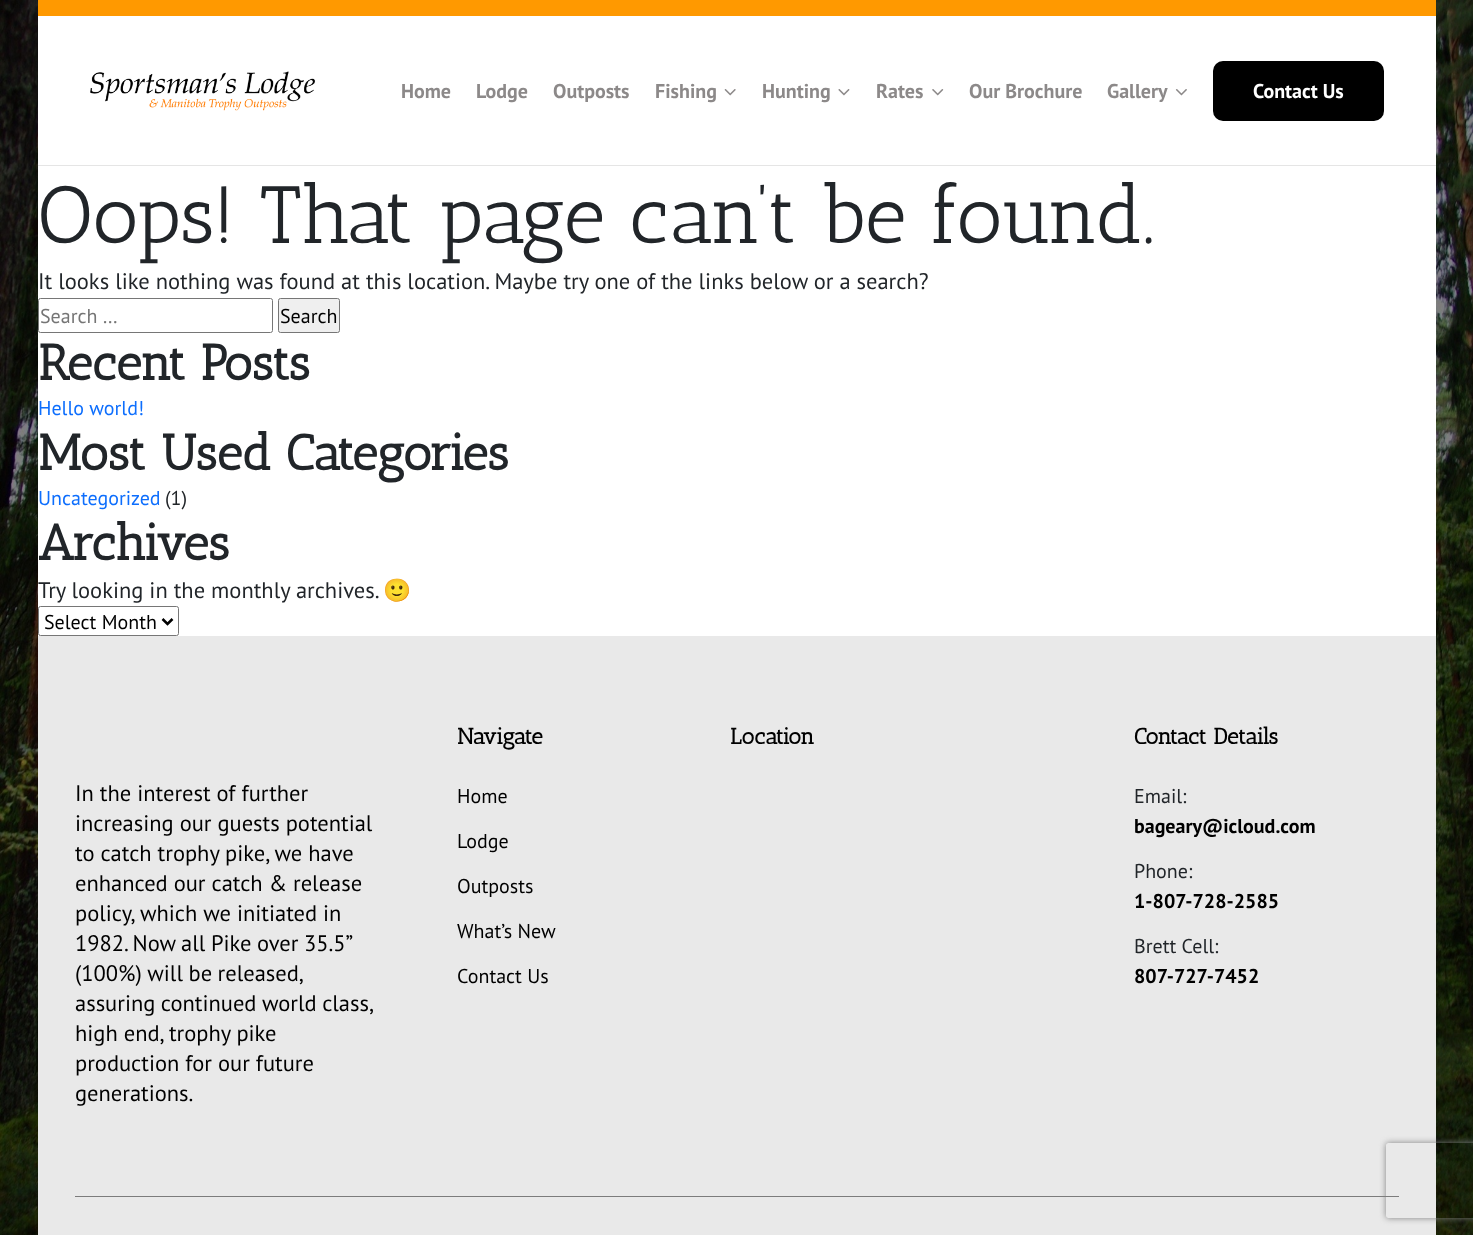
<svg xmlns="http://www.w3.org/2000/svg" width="1473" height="1235">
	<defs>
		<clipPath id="clip1"><path d="M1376 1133H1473V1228H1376ZM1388.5 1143H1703.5C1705 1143 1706 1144 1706 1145.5V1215.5C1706 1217 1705 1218 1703.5 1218H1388.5C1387 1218 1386 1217 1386 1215.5V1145.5C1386 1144 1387 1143 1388.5 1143Z" clip-rule="evenodd" /></clipPath>
	</defs>
	<rect width="100%" height="100%" fill="#FFFFFF" />
	<image x="0" y="0" width="1473" height="1235" href="assets/img1.png" />
	<rect x="38" y="0" width="1398" height="16" fill="#FF9900" />
	<rect x="38" y="16" width="1398" height="149" fill="#FFFFFF" />
	<rect x="38" y="165" width="1398" height="1" fill="#E5E5E5" />
	<image x="90" y="71" width="225" height="40" href="assets/img2.png" />
	<g font-family="PT Sans" font-size="20" font-weight="700" fill="#8C8989">
		<text x="401" y="98">Home</text>
		<text x="476" y="98">Lodge</text>
		<text x="553" y="98">Outposts</text>
		<text x="655" y="98">Fishing</text>
	</g>
	<image x="724" y="89" width="12" height="7" href="assets/img3.png" />
	<text x="762" y="98" font-family="PT Sans" font-size="20" font-weight="700" fill="#8C8989">Hunting</text>
	<image x="838" y="89" width="12" height="7" href="assets/img4.png" />
	<text x="876" y="98" font-family="PT Sans" font-size="20" font-weight="700" fill="#8C8989">Rates</text>
	<image x="932" y="89" width="12" height="7" href="assets/img5.png" />
	<g font-family="PT Sans" font-size="20" font-weight="700" fill="#8C8989">
		<text x="969" y="98">Our Brochure</text>
		<text x="1107" y="98">Gallery</text>
	</g>
	<image x="1175" y="89" width="12" height="7" href="assets/img6.png" />
	<rect x="1213" y="61" width="171" height="60" rx="10" fill="#000000" />
	<text x="1253" y="98" font-family="PT Sans" font-size="20" font-weight="700" fill="#FFFFFF">Contact Us</text>
	<rect x="38" y="166" width="1398" height="470" fill="#FFFFFF" />
	<text x="38" y="243" font-family="Antic Slab" font-size="81.25" fill="#212529">Oops! That page can’t be found.</text>
	<text x="38" y="289" font-family="PT Sans" font-size="22.5" fill="#212529">It looks like nothing was found at this location. Maybe try one of the links below or a search?</text>
	<rect x="38.5" y="298.5" width="234" height="34" rx="2" fill="none" stroke="#767676" />
	<text x="40" y="323" font-family="PT Sans" font-size="20" fill="#757575">Search …</text>
	<rect x="278.5" y="298.5" width="61" height="34" rx="2" fill="#EFEFEF" stroke="#767676" />
	<text x="280" y="323" font-family="PT Sans" font-size="20" fill="#000000">Search</text>
	<text x="38" y="380" font-family="Antic Slab" font-size="50" font-weight="700" fill="#212529">Recent Posts</text>
	<text x="38" y="415" font-family="PT Sans" font-size="20" fill="#0D6EFD">Hello world!</text>
	<text x="38" y="470" font-family="Antic Slab" font-size="50" font-weight="700" fill="#212529">Most Used Categories</text>
	<text x="38" y="505" font-family="PT Sans" font-size="20" fill="#0D6EFD">Uncategorized</text>
	<text x="165" y="505" font-family="PT Sans" font-size="20" fill="#212529">(1)</text>
	<text x="38" y="560" font-family="Antic Slab" font-size="50" font-weight="700" fill="#212529">Archives</text>
	<text x="38" y="598" font-family="PT Sans" font-size="22.5" fill="#212529">Try looking in the monthly archives.</text>
	<text x="383" y="598" font-family="Noto Color Emoji" font-size="22.5" fill="#212529">🙂</text>
	<rect x="38.5" y="606.5" width="140" height="29" rx="2" fill="none" stroke="#767676" />
	<path d="M162.5 619L167.5 624L172.5 619" fill="none" stroke="#000000" stroke-width="2.5" />
	<text x="44" y="629" font-family="PT Sans" font-size="20" fill="#000000">Select Month</text>
	<rect x="38" y="636" width="1398" height="599" fill="#E9E9E9" />
	<g font-family="PT Sans" font-size="22.5" fill="#000000">
		<text x="75" y="801">In the interest of further</text>
		<text x="75" y="831">increasing our guests potential</text>
		<text x="75" y="861">to catch trophy pike, we have</text>
		<text x="75" y="891">enhanced our catch &amp; release</text>
		<text x="75" y="921">policy, which we initiated in</text>
		<text x="75" y="951" word-spacing="-0.5">1982. Now all Pike over 35.5”</text>
		<text x="75" y="981" word-spacing="-0.5">(100%) will be released,</text>
		<text x="75" y="1011" word-spacing="-0.5">assuring continued world class,</text>
		<text x="75" y="1041">high end, trophy pike</text>
		<text x="75" y="1071">production for our future</text>
		<text x="75" y="1101">generations.</text>
	</g>
	<text x="457" y="744" font-family="Antic Slab" font-size="22.5" font-weight="700" fill="#000000">Navigate</text>
	<g font-family="PT Sans" font-size="20" fill="#000000">
		<text x="457" y="803">Home</text>
		<text x="457" y="848">Lodge</text>
		<text x="457" y="893">Outposts</text>
		<text x="457" y="938">What’s New</text>
		<text x="457" y="983">Contact Us</text>
	</g>
	<g font-family="Antic Slab" font-size="22.5" font-weight="700" fill="#000000">
		<text x="730" y="744">Location</text>
		<text x="1134" y="744">Contact Details</text>
	</g>
	<text x="1134" y="803" font-family="PT Sans" font-size="20" fill="#212529">Email:</text>
	<text x="1134" y="833" font-family="PT Sans" font-size="20" font-weight="700" fill="#000000">bageary@icloud.com</text>
	<text x="1134" y="878" font-family="PT Sans" font-size="20" fill="#212529">Phone:</text>
	<text x="1134" y="908" font-family="PT Sans" font-size="20" font-weight="700" fill="#000000">1-807-728-2585</text>
	<text x="1134" y="953" font-family="PT Sans" font-size="20" fill="#212529">Brett Cell:</text>
	<text x="1134" y="983" font-family="PT Sans" font-size="20" font-weight="700" fill="#000000">807-727-7452</text>
	<rect x="75" y="1196" width="1324" height="1" fill="#7C7C7C" />
	<g clip-path="url(#clip1)">
		<rect x="1386" y="1143" width="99" height="75" rx="2.5" fill="#808080" filter="blur(3px)" />
	</g>
</svg>
